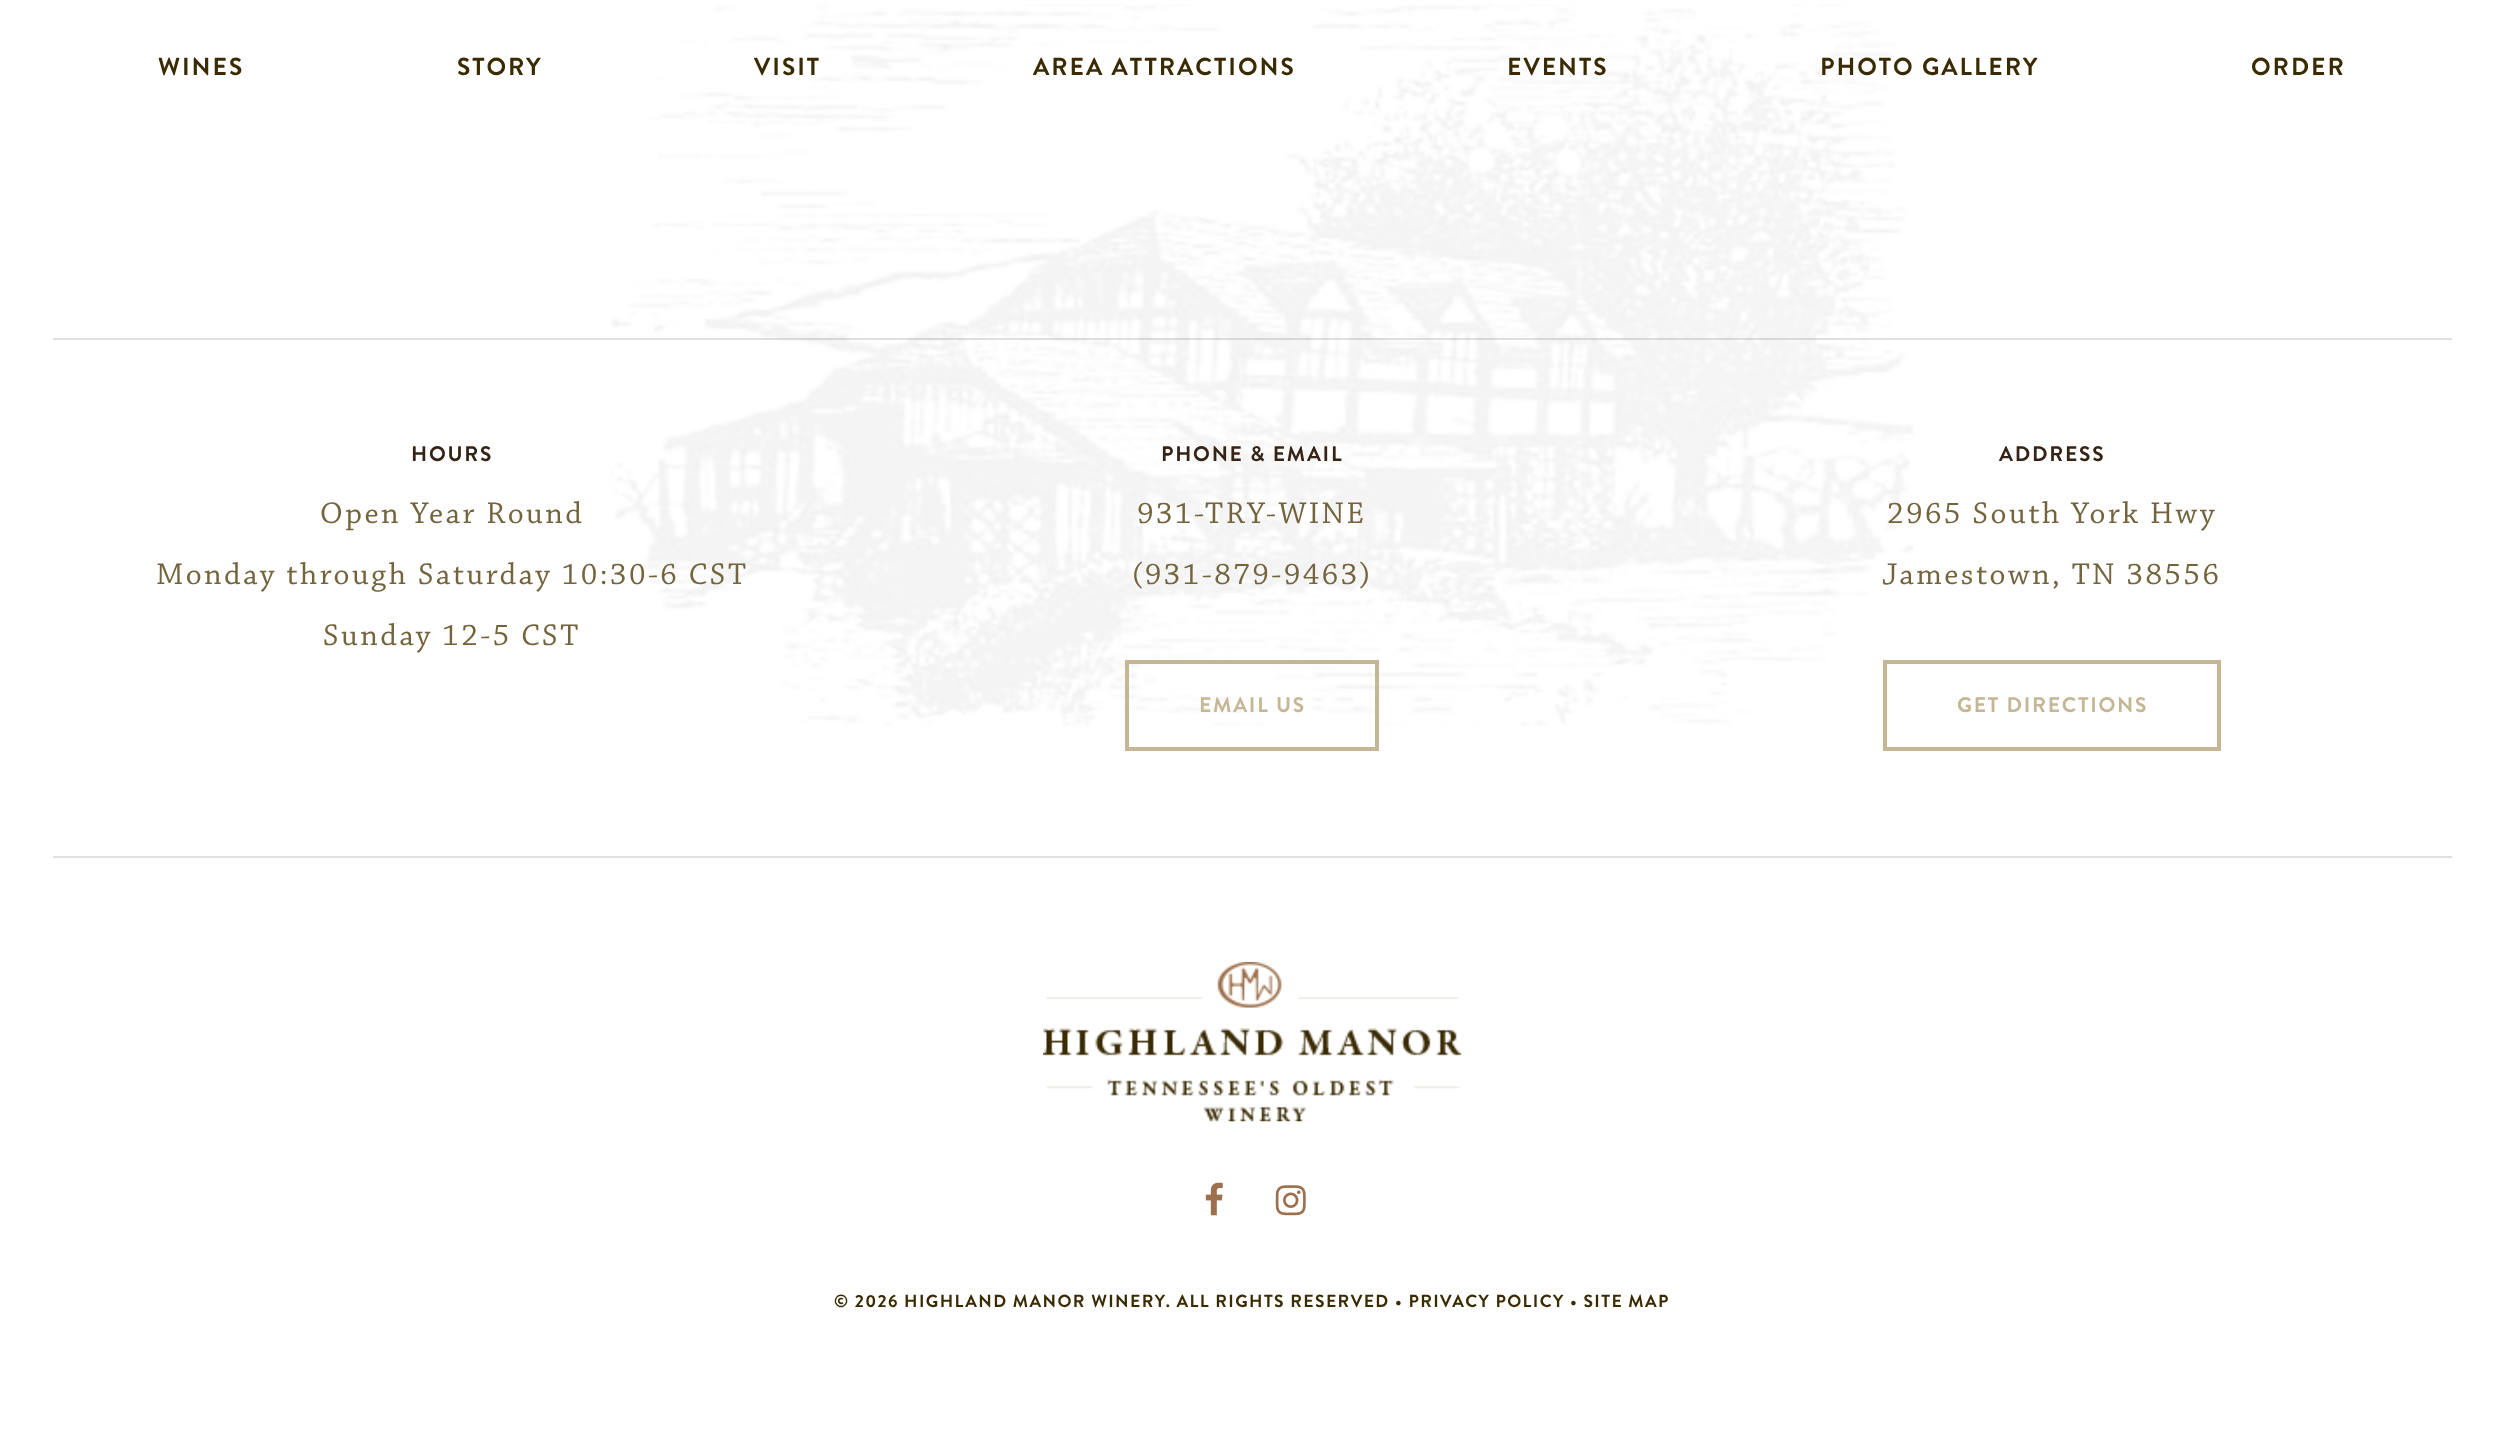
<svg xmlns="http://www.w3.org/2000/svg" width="2504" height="1454">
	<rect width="100%" height="100%" fill="#FFFFFF" />
	<image x="610" y="4" width="1304" height="722" href="assets/img1.png" />
	<g font-family="Brandon Grotesque" font-size="24.5" font-weight="700" letter-spacing="2" fill="#3A2B03">
		<text x="158" y="75">WINES</text>
		<text x="457" y="75">STORY</text>
		<text x="754" y="75">VISIT</text>
		<text x="1033" y="75">AREA ATTRACTIONS</text>
		<text x="1507" y="75">EVENTS</text>
		<text x="1820" y="75">PHOTO GALLERY</text>
		<text x="2251" y="75">ORDER</text>
	</g>
	<rect x="53" y="338" width="2399" height="2" fill="#392D1B" fill-opacity="0.15" />
	<rect x="53" y="856" width="2399" height="2" fill="#E1E0DD" />
	<text x="411" y="461" font-family="Brandon Grotesque" font-size="21" font-weight="700" letter-spacing="1.75" fill="#352415">HOURS</text>
	<g font-family="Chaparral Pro" font-size="31.5" letter-spacing="2.5" fill="#74643E">
		<text x="320" y="523">Open Year Round</text>
		<text x="156" y="584">Monday through Saturday 10:30-6 CST</text>
		<text x="323" y="645">Sunday 12-5 CST</text>
	</g>
	<text x="1161" y="461" font-family="Brandon Grotesque" font-size="21" font-weight="700" letter-spacing="1.75" fill="#352415">PHONE &amp; EMAIL</text>
	<g font-family="Chaparral Pro" font-size="31.5" letter-spacing="2.5" fill="#74643E">
		<text x="1137" y="523">931-TRY-WINE</text>
		<text x="1132" y="584">(931-879-9463)</text>
	</g>
	<rect x="1127" y="662" width="250" height="87" fill="none" stroke="#C5B795" stroke-width="4" />
	<text x="1199" y="712" font-family="Brandon Grotesque" font-size="21" font-weight="700" letter-spacing="1.75" fill="#C5B795">EMAIL US</text>
	<text x="1999" y="461" font-family="Brandon Grotesque" font-size="21" font-weight="700" letter-spacing="1.75" fill="#352415">ADDRESS</text>
	<g font-family="Chaparral Pro" font-size="31.5" letter-spacing="2.5" fill="#74643E">
		<text x="1887" y="523">2965 South York Hwy</text>
		<text x="1882" y="584">Jamestown, TN 38556</text>
	</g>
	<rect x="1885" y="662" width="334" height="87" fill="none" stroke="#C5B795" stroke-width="4" />
	<text x="1957" y="712" font-family="Brandon Grotesque" font-size="21" font-weight="700" letter-spacing="1.75" fill="#C5B795">GET DIRECTIONS</text>
	<image x="1043" y="962" width="419" height="160" href="assets/img2.png" />
	<image x="1205" y="1182" width="18" height="34" href="assets/img3.png" />
	<image x="1275" y="1185" width="31" height="31" href="assets/img4.png" />
	<text x="834" y="1307" font-family="Brandon Grotesque" font-size="17.5" font-weight="700" letter-spacing="1.4" fill="#3A2B03">© 2026 HIGHLAND MANOR WINERY. ALL RIGHTS RESERVED • PRIVACY POLICY • SITE MAP</text>
</svg>
